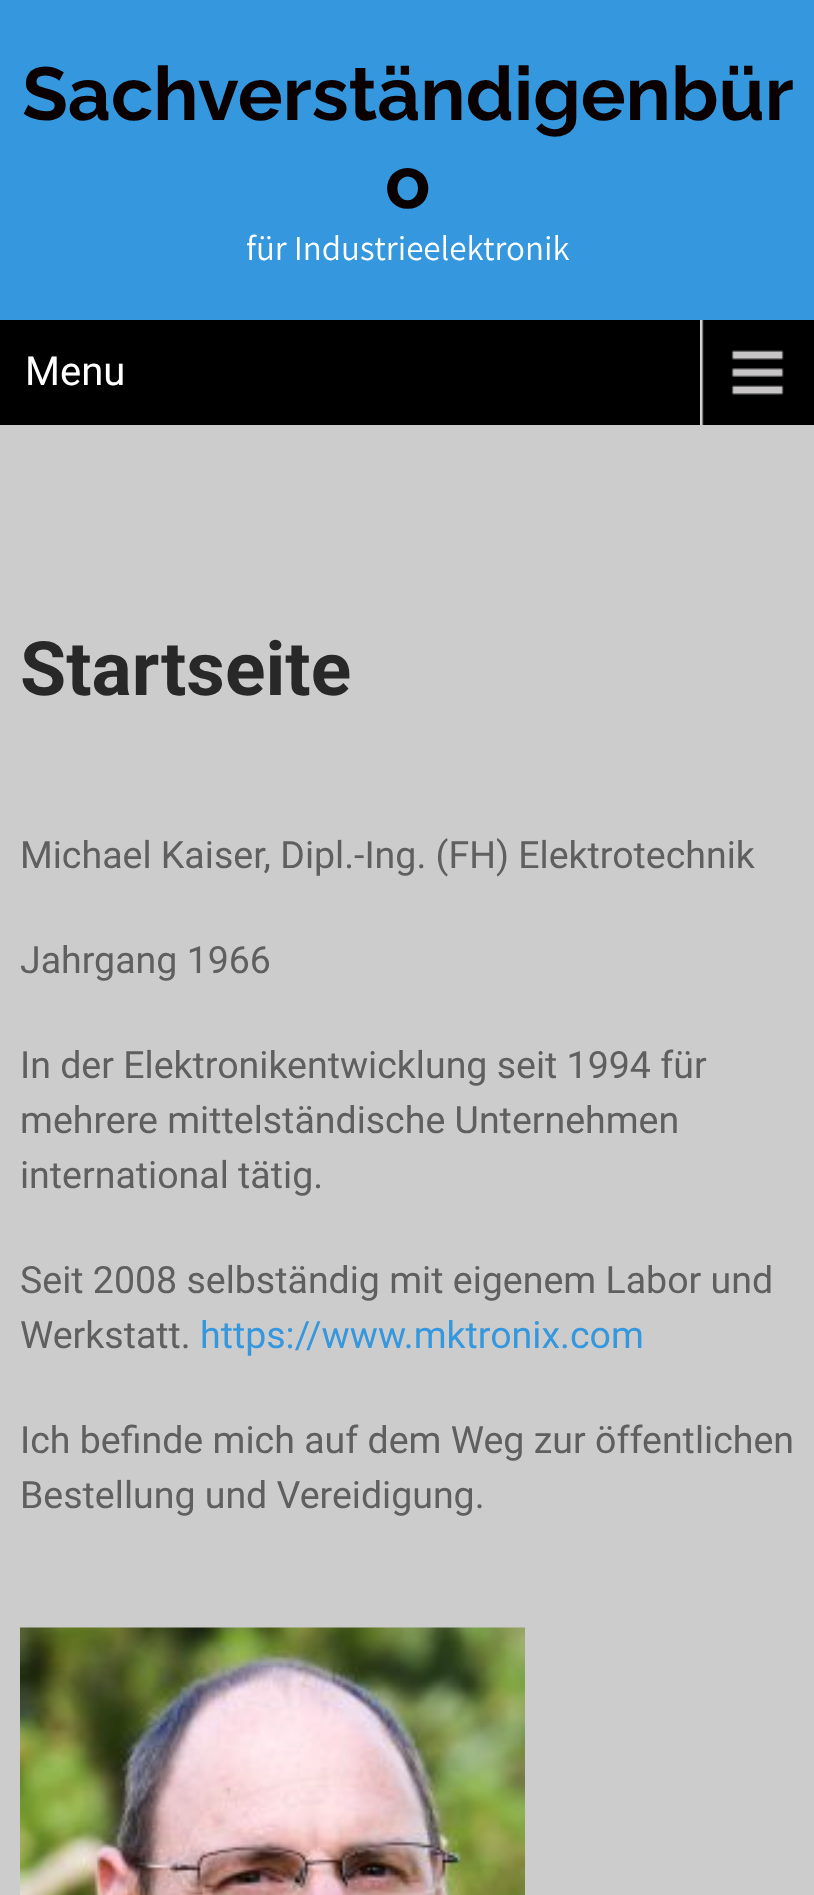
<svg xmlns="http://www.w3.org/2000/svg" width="814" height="1895">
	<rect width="100%" height="100%" fill="#CCCCCC" />
	<rect x="0" y="0" width="814" height="320" fill="#3597DD" />
	<g font-family="Raleway" font-size="75" font-weight="700" fill="#0A0000">
		<text x="22" y="120">Sachverständigenbür</text>
		<text x="385" y="208">o</text>
	</g>
	<text x="246" y="260" font-family="Assistant" font-size="35" fill="#FFFFFF">für Industrieelektronik</text>
	<rect x="0" y="320" width="814" height="105" fill="#000000" />
	<image x="700" y="320" width="84" height="105" href="assets/img1.png" />
	<text x="25" y="385" font-family="Roboto" font-size="40" fill="#FFFFFF">Menu</text>
	<text x="20" y="695" font-family="Roboto" font-size="75" font-weight="700" fill="#282828">Startseite</text>
	<g font-family="Roboto" font-size="37.5" fill="#5F5F5F">
		<text x="20" y="868">Michael Kaiser, Dipl.-Ing. (FH) Elektrotechnik</text>
		<text x="20" y="973">Jahrgang 1966</text>
		<text x="20" y="1078">In der Elektronikentwicklung seit 1994 für</text>
		<text x="20" y="1133">mehrere mittelständische Unternehmen</text>
		<text x="20" y="1188">international tätig.</text>
		<text x="20" y="1293">Seit 2008 selbständig mit eigenem Labor und</text>
		<text x="20" y="1348">Werkstatt.</text>
	</g>
	<text x="200" y="1348" font-family="Roboto" font-size="37.5" fill="#3597DD">https://www.mktronix.com</text>
	<g font-family="Roboto" font-size="37.5" fill="#5F5F5F">
		<text x="20" y="1453">Ich befinde mich auf dem Weg zur öffentlichen</text>
		<text x="20" y="1508">Bestellung und Vereidigung.</text>
	</g>
	<image x="20" y="1627" width="505" height="268" href="assets/img2.png" />
</svg>
